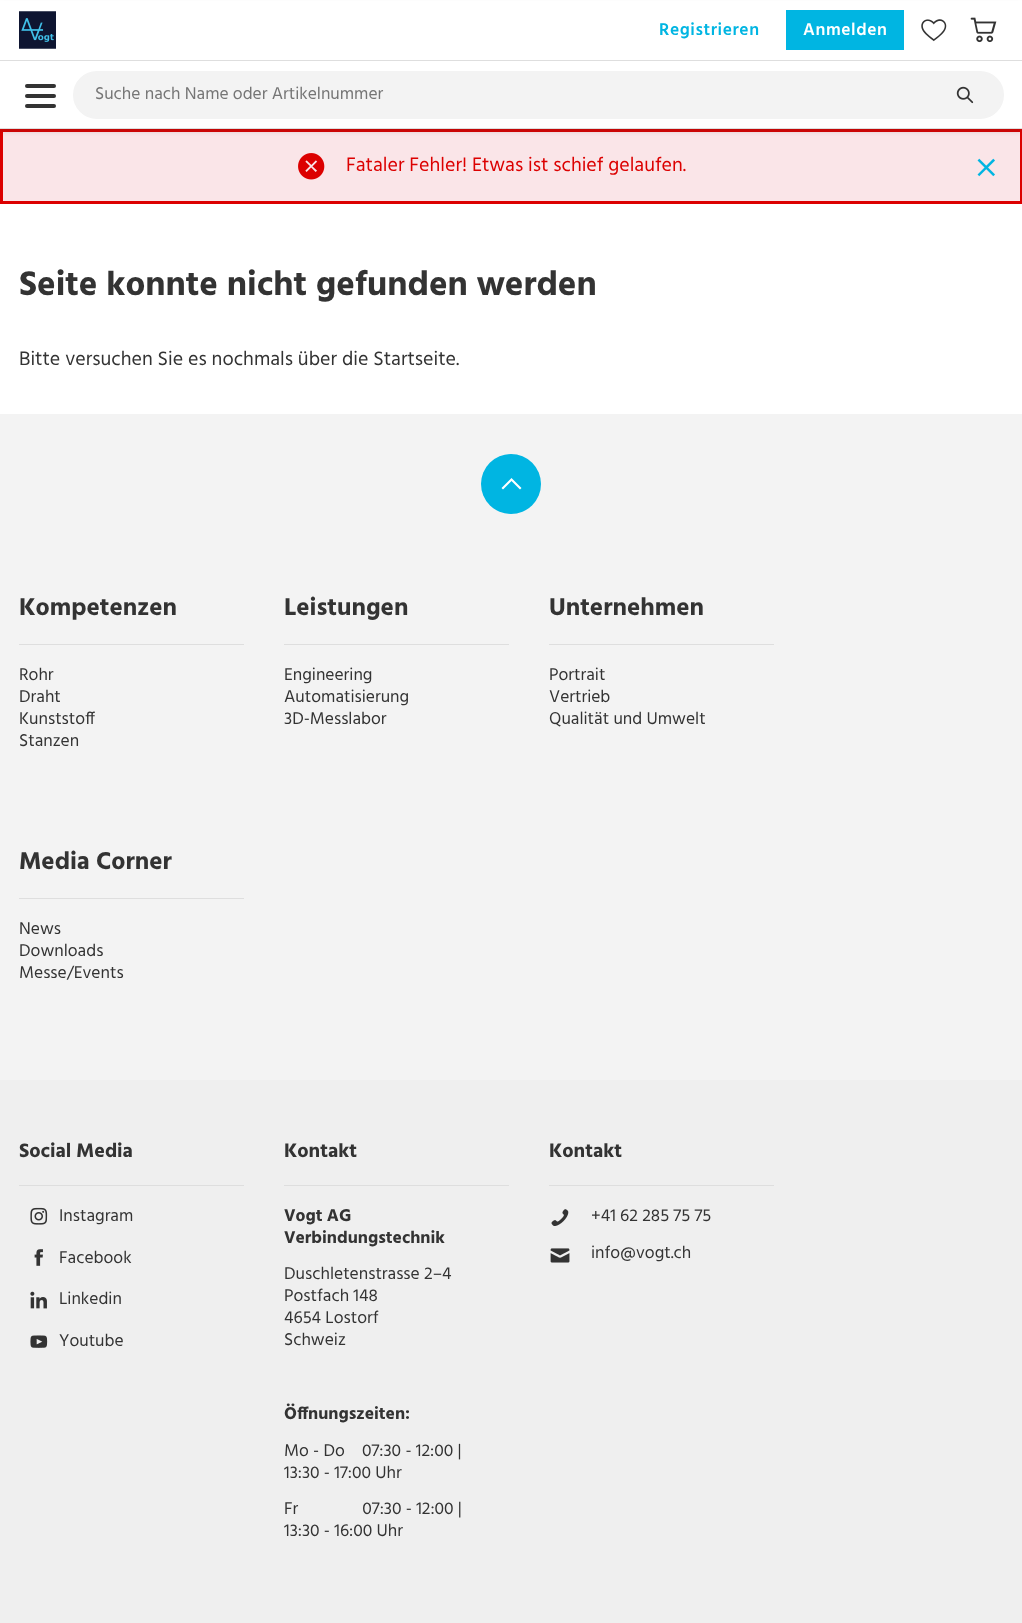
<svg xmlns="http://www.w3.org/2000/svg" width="1022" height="1623">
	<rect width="100%" height="100%" fill="#FFFFFF" />
	<rect x="1.5" y="130.5" width="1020" height="72" fill="#FAE5E8" stroke="#DC0000" stroke-width="3" />
	<rect x="1" y="5" width="1020" height="126" fill="#333333" fill-opacity="0.2" filter="blur(2.5px)" />
	<rect x="0" y="1" width="1022" height="127" fill="#FFFFFF" />
	<rect x="0" y="128" width="1022" height="1" fill="#DEDEDE" />
	<rect x="0" y="60" width="1022" height="1" fill="#DEDEDE" />
	<image x="19" y="11" width="37" height="38" href="assets/img1.png" />
	<text x="659" y="35" font-family="Hind" font-size="17.5" font-weight="600" letter-spacing="0.6" fill="#00B5E2">Registrieren</text>
	<rect x="786" y="10" width="118" height="40" fill="#00B5E2" />
	<text x="803" y="35" font-family="Hind" font-size="17.5" font-weight="600" letter-spacing="0.6" fill="#FFFFFF">Anmelden</text>
	<image x="921" y="19" width="26" height="23" href="assets/img2.png" />
	<image x="970" y="17" width="27" height="26" href="assets/img3.png" />
	<rect x="25" y="104" width="31" height="4" rx="2" fill="#333333" />
	<rect x="25" y="84" width="31" height="4" rx="2" fill="#333333" />
	<rect x="25" y="94" width="31" height="4" rx="2" fill="#333333" />
	<rect x="74.5" y="72.5" width="928" height="45" rx="22.5" fill="#F3F3F3" stroke="#F3F3F3" stroke-width="3" />
	<text x="95" y="99" font-family="Hind" font-size="17.5" fill="#757575">Suche nach Name oder Artikelnummer</text>
	<image x="956" y="86" width="18" height="18" href="assets/img4.png" />
	<image x="298" y="153" width="27" height="27" href="assets/img5.png" />
	<text x="346" y="171" font-family="Hind" font-size="20" fill="#DC0000">Fataler Fehler! Etwas ist schief gelaufen.</text>
	<image x="977" y="158" width="18" height="19" href="assets/img6.png" />
	<text x="19" y="295" font-family="Hind" font-size="35" font-weight="700" fill="#333333">Seite konnte nicht gefunden werden</text>
	<text x="19" y="365" font-family="Hind" font-size="20" fill="#333333">Bitte versuchen Sie es nochmals über die Startseite.</text>
	<rect x="0" y="414" width="1022" height="666" fill="#F3F3F3" />
	<circle cx="511" cy="484" r="30" fill="#00B5E2" />
	<path d="M501.5 488L511.5 478L521.5 488L520 489.5L511.5 481L503 489.5Z" fill="#FFFFFF" />
	<rect x="19" y="644" width="225" height="1" fill="#DEDEDE" />
	<text x="19" y="615" font-family="Hind" font-size="25" font-weight="700" fill="#333333">Kompetenzen</text>
	<g font-family="Hind" font-size="17.5" fill="#333333">
		<text x="19" y="680">Rohr</text>
		<text x="19" y="702">Draht</text>
		<text x="19" y="724">Kunststoff</text>
		<text x="19" y="746">Stanzen</text>
	</g>
	<rect x="284" y="644" width="225" height="1" fill="#DEDEDE" />
	<text x="284" y="615" font-family="Hind" font-size="25" font-weight="700" fill="#333333">Leistungen</text>
	<g font-family="Hind" font-size="17.5" fill="#333333">
		<text x="284" y="680">Engineering</text>
		<text x="284" y="702">Automatisierung</text>
		<text x="284" y="724">3D-Messlabor</text>
	</g>
	<rect x="549" y="644" width="225" height="1" fill="#DEDEDE" />
	<text x="549" y="615" font-family="Hind" font-size="25" font-weight="700" fill="#333333">Unternehmen</text>
	<g font-family="Hind" font-size="17.5" fill="#333333">
		<text x="549" y="680">Portrait</text>
		<text x="549" y="702">Vertrieb</text>
		<text x="549" y="724">Qualität und Umwelt</text>
	</g>
	<rect x="19" y="898" width="225" height="1" fill="#DEDEDE" />
	<text x="19" y="869" font-family="Hind" font-size="25" font-weight="700" fill="#333333">Media Corner</text>
	<g font-family="Hind" font-size="17.5" fill="#333333">
		<text x="19" y="934">News</text>
		<text x="19" y="956">Downloads</text>
		<text x="19" y="978">Messe/Events</text>
	</g>
	<rect x="0" y="1080" width="1022" height="543" fill="#EFEFEF" />
	<rect x="19" y="1185" width="225" height="1" fill="#DEDEDE" />
	<text x="19" y="1157" font-family="Hind" font-size="20" font-weight="700" fill="#333333">Social Media</text>
	<image x="30" y="1207" width="18" height="18" href="assets/img7.png" />
	<text x="59" y="1221" font-family="Hind" font-size="17.5" fill="#333333">Instagram</text>
	<image x="34" y="1249" width="9" height="17" href="assets/img8.png" />
	<text x="59" y="1263" font-family="Hind" font-size="17.5" fill="#333333">Facebook</text>
	<image x="30" y="1291" width="17" height="18" href="assets/img9.png" />
	<text x="59" y="1304" font-family="Hind" font-size="17.5" fill="#333333">Linkedin</text>
	<image x="30" y="1335" width="18" height="13" href="assets/img10.png" />
	<text x="59" y="1346" font-family="Hind" font-size="17.5" fill="#333333">Youtube</text>
	<rect x="284" y="1185" width="225" height="1" fill="#DEDEDE" />
	<text x="284" y="1157" font-family="Hind" font-size="20" font-weight="700" fill="#333333">Kontakt</text>
	<g font-family="Hind" font-size="17.5" font-weight="700" fill="#333333">
		<text x="284" y="1221">Vogt AG</text>
		<text x="284" y="1243">Verbindungstechnik</text>
	</g>
	<g font-family="Hind" font-size="17.5" fill="#333333">
		<text x="284" y="1279">Duschletenstrasse 2–4</text>
		<text x="284" y="1301">Postfach 148</text>
		<text x="284" y="1323">4654 Lostorf</text>
		<text x="284" y="1345">Schweiz</text>
	</g>
	<text x="284" y="1419" font-family="Hind" font-size="17.5" font-weight="700" fill="#333333">Öffnungszeiten:</text>
	<g font-family="Hind" font-size="17.5" fill="#333333">
		<text x="284" y="1456" xml:space="preserve">Mo - Do    07:30 - 12:00 |</text>
		<text x="284" y="1478">13:30 - 17:00 Uhr</text>
		<text x="284" y="1514" xml:space="preserve">Fr               07:30 - 12:00 |</text>
		<text x="284" y="1536">13:30 - 16:00 Uhr</text>
	</g>
	<rect x="549" y="1185" width="225" height="1" fill="#DEDEDE" />
	<text x="549" y="1157" font-family="Hind" font-size="20" font-weight="700" fill="#333333">Kontakt</text>
	<image x="551" y="1209" width="18" height="17" href="assets/img11.png" />
	<text x="591" y="1221" font-family="Hind" font-size="17.5" fill="#333333">+41 62 285 75 75</text>
	<image x="550" y="1248" width="20" height="15" href="assets/img12.png" />
	<text x="591" y="1258" font-family="Hind" font-size="17.5" fill="#333333">info@vogt.ch</text>
</svg>
